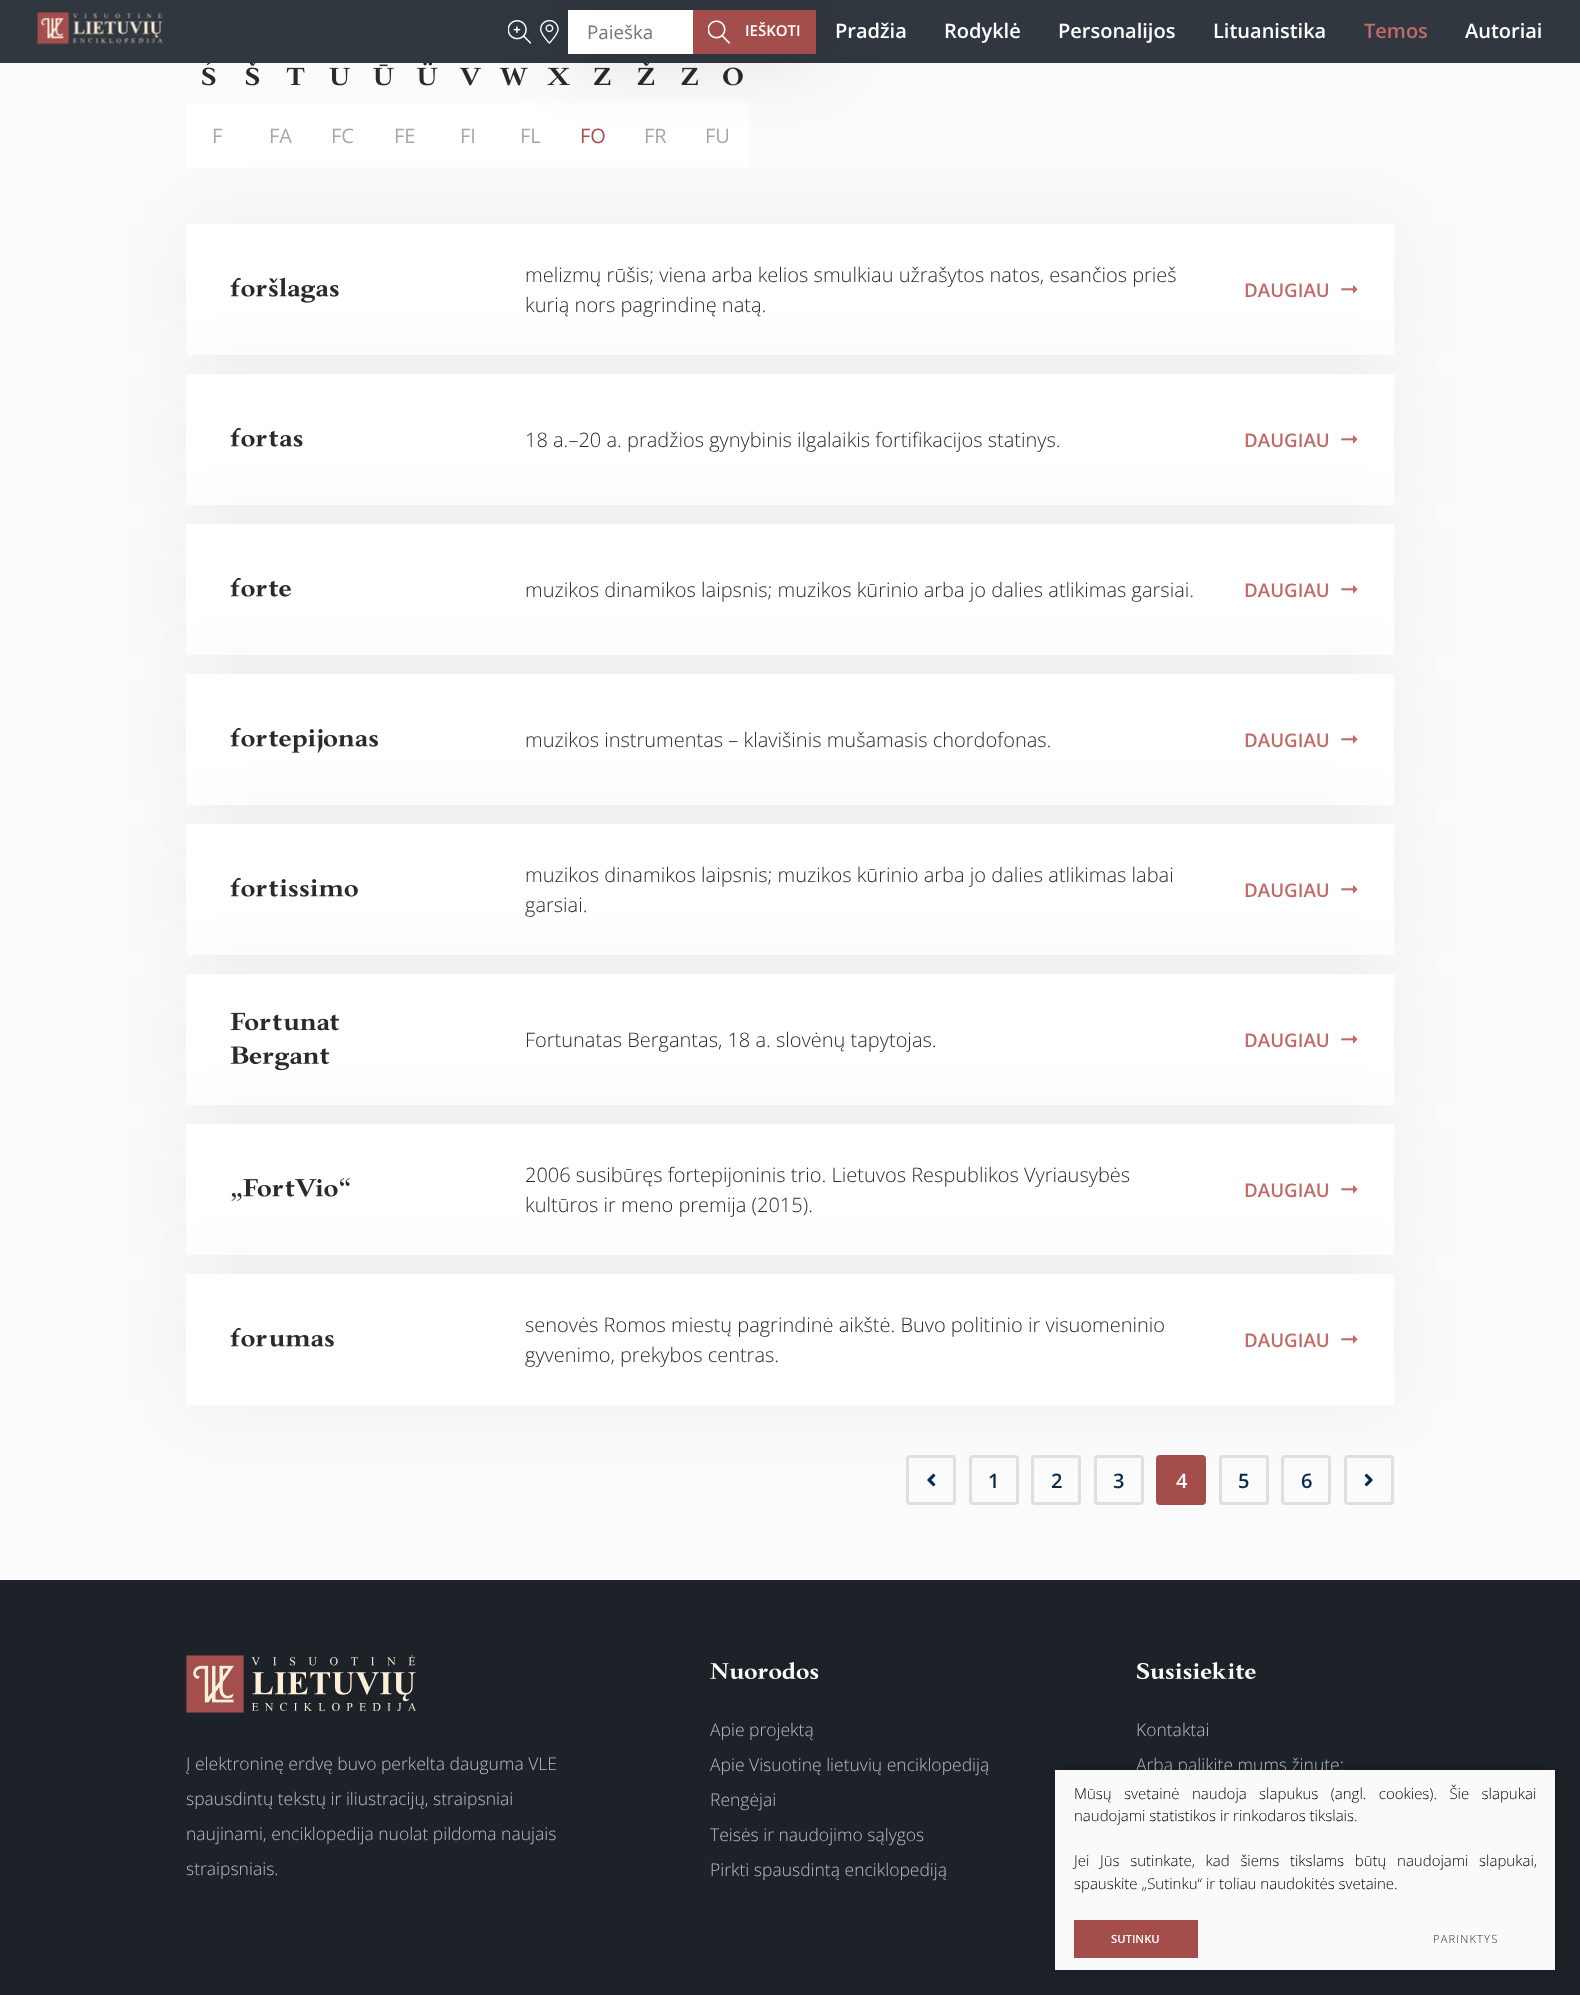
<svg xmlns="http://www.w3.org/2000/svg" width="1580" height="1995">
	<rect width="100%" height="100%" fill="#FBFBFB" />
	<rect x="0" y="0" width="1580" height="63" fill="#30373F" />
	<image x="37" y="12" width="126" height="33" href="assets/img1.png" />
	<image x="508" y="20" width="23" height="24" href="assets/img2.png" />
	<image x="540" y="20" width="19" height="24" href="assets/img3.png" />
	<image x="459" y="67" width="23" height="19" href="assets/img11.png" />
	<image x="499" y="67" width="29" height="19" href="assets/img12.png" />
	<image x="547" y="67" width="23" height="18" href="assets/img13.png" />
	<image x="594" y="67" width="17" height="18" href="assets/img14.png" />
	<image x="637" y="63" width="17" height="22" href="assets/img15.png" />
	<image x="681" y="67" width="17" height="18" href="assets/img16.png" />
	<image x="723" y="67" width="20" height="19" href="assets/img17.png" />
	<rect x="186" y="103" width="563" height="65" fill="#FFFFFF" />
	<rect x="568" y="10" width="248" height="44" fill="#000000" fill-opacity="0.14" filter="blur(39px)" />
	<rect x="568" y="10" width="125" height="44" fill="#FFFFFF" />
	<text x="587" y="39" font-family="Open Sans" font-size="18.75" fill="#757575">Paieška</text>
	<rect x="693" y="10" width="123" height="44" fill="#A44E4C" />
	<image x="708" y="20" width="22" height="24" href="assets/img4.png" />
	<text x="745" y="36" font-family="Open Sans" font-size="15" font-weight="600" fill="#FFFFFF">IEŠKOTI</text>
	<g font-family="Open Sans" font-size="20" font-weight="600" fill="#FFFFFF">
		<text x="835" y="38">Pradžia</text>
		<text x="944" y="38">Rodyklė</text>
		<text x="1058" y="38">Personalijos</text>
		<text x="1213" y="38">Lituanistika</text>
	</g>
	<text x="1364" y="38" font-family="Open Sans" font-size="20" font-weight="600" fill="#C16B69">Temos</text>
	<text x="1465" y="38" font-family="Open Sans" font-size="20" font-weight="600" fill="#FFFFFF">Autoriai</text>
	<image x="202" y="63" width="14" height="23" href="assets/img5.png" />
	<image x="245" y="63" width="15" height="23" href="assets/img6.png" />
	<image x="286" y="67" width="19" height="18" href="assets/img7.png" />
	<image x="329" y="67" width="22" height="19" href="assets/img8.png" />
	<image x="373" y="64" width="21" height="22" href="assets/img9.png" />
	<image x="416" y="63" width="22" height="23" href="assets/img10.png" />
	<g font-family="Open Sans" font-size="20" fill="#A7A7A7">
		<text x="212" y="143">F</text>
		<text x="269" y="143">FA</text>
		<text x="331" y="143">FC</text>
		<text x="394" y="143">FE</text>
		<text x="460" y="143">FI</text>
		<text x="520" y="143">FL</text>
	</g>
	<text x="580" y="143" font-family="Open Sans" font-size="20" fill="#A44E4C">FO</text>
	<g font-family="Open Sans" font-size="20" fill="#A7A7A7">
		<text x="644" y="143">FR</text>
		<text x="705" y="143">FU</text>
	</g>
	<rect x="186" y="224" width="1208" height="131" fill="#000000" fill-opacity="0.05" filter="blur(37.5px)" />
	<rect x="186" y="224" width="1208" height="131" fill="#FFFFFF" />
	<image x="230" y="277" width="109" height="26" href="assets/img18.png" />
	<g font-family="Open Sans" font-size="20" font-weight="300" fill="#272B2E">
		<text x="525" y="282">melizmų rūšis; viena arba kelios smulkiau užrašytos natos, esančios prieš</text>
		<text x="525" y="312">kurią nors pagrindinę natą.</text>
	</g>
	<text x="1244" y="297" font-family="Open Sans" font-size="18.75" font-weight="600" fill="#C16B69">DAUGIAU</text>
	<image x="1341" y="285" width="17" height="9" href="assets/img19.png" />
	<rect x="186" y="374" width="1208" height="131" fill="#000000" fill-opacity="0.05" filter="blur(37.5px)" />
	<rect x="186" y="374" width="1208" height="131" fill="#FFFFFF" />
	<image x="230" y="428" width="73" height="19" href="assets/img20.png" />
	<text x="525" y="447" font-family="Open Sans" font-size="20" font-weight="300" fill="#272B2E">18 a.–20 a. pradžios gynybinis ilgalaikis fortifikacijos statinys.</text>
	<text x="1244" y="447" font-family="Open Sans" font-size="18.75" font-weight="600" fill="#C16B69">DAUGIAU</text>
	<image x="1341" y="435" width="17" height="9" href="assets/img19.png" />
	<rect x="186" y="524" width="1208" height="131" fill="#000000" fill-opacity="0.05" filter="blur(37.5px)" />
	<rect x="186" y="524" width="1208" height="131" fill="#FFFFFF" />
	<image x="230" y="578" width="61" height="19" href="assets/img21.png" />
	<text x="525" y="597" font-family="Open Sans" font-size="20" font-weight="300" fill="#272B2E">muzikos dinamikos laipsnis; muzikos kūrinio arba jo dalies atlikimas garsiai.</text>
	<text x="1244" y="597" font-family="Open Sans" font-size="18.75" font-weight="600" fill="#C16B69">DAUGIAU</text>
	<image x="1341" y="585" width="17" height="9" href="assets/img19.png" />
	<rect x="186" y="674" width="1208" height="131" fill="#000000" fill-opacity="0.05" filter="blur(37.5px)" />
	<rect x="186" y="674" width="1208" height="131" fill="#FFFFFF" />
	<image x="230" y="728" width="148" height="25" href="assets/img22.png" />
	<text x="525" y="747" font-family="Open Sans" font-size="20" font-weight="300" fill="#272B2E">muzikos instrumentas – klavišinis mušamasis chordofonas.</text>
	<text x="1244" y="747" font-family="Open Sans" font-size="18.75" font-weight="600" fill="#C16B69">DAUGIAU</text>
	<image x="1341" y="735" width="17" height="9" href="assets/img19.png" />
	<rect x="186" y="824" width="1208" height="131" fill="#000000" fill-opacity="0.05" filter="blur(37.5px)" />
	<rect x="186" y="824" width="1208" height="131" fill="#FFFFFF" />
	<image x="230" y="878" width="128" height="19" href="assets/img23.png" />
	<g font-family="Open Sans" font-size="20" font-weight="300" fill="#272B2E">
		<text x="525" y="882">muzikos dinamikos laipsnis; muzikos kūrinio arba jo dalies atlikimas labai</text>
		<text x="525" y="912">garsiai.</text>
	</g>
	<text x="1244" y="897" font-family="Open Sans" font-size="18.75" font-weight="600" fill="#C16B69">DAUGIAU</text>
	<image x="1341" y="885" width="17" height="9" href="assets/img19.png" />
	<rect x="186" y="974" width="1208" height="131" fill="#000000" fill-opacity="0.05" filter="blur(37.5px)" />
	<rect x="186" y="974" width="1208" height="131" fill="#FFFFFF" />
	<image x="230" y="1012" width="109" height="19" href="assets/img24.png" />
	<image x="230" y="1046" width="100" height="25" href="assets/img25.png" />
	<text x="525" y="1047" font-family="Open Sans" font-size="20" font-weight="300" fill="#272B2E">Fortunatas Bergantas, 18 a. slovėnų tapytojas.</text>
	<text x="1244" y="1047" font-family="Open Sans" font-size="18.75" font-weight="600" fill="#C16B69">DAUGIAU</text>
	<image x="1341" y="1035" width="17" height="9" href="assets/img19.png" />
	<rect x="186" y="1124" width="1208" height="131" fill="#000000" fill-opacity="0.05" filter="blur(37.5px)" />
	<rect x="186" y="1124" width="1208" height="131" fill="#FFFFFF" />
	<image x="231" y="1178" width="119" height="23" href="assets/img26.png" />
	<g font-family="Open Sans" font-size="20" font-weight="300" fill="#272B2E">
		<text x="525" y="1182">2006 susibūręs fortepijoninis trio. Lietuvos Respublikos Vyriausybės</text>
		<text x="525" y="1212">kultūros ir meno premija (2015).</text>
	</g>
	<text x="1244" y="1197" font-family="Open Sans" font-size="18.75" font-weight="600" fill="#C16B69">DAUGIAU</text>
	<image x="1341" y="1185" width="17" height="9" href="assets/img19.png" />
	<rect x="186" y="1274" width="1208" height="131" fill="#000000" fill-opacity="0.05" filter="blur(37.5px)" />
	<rect x="186" y="1274" width="1208" height="131" fill="#FFFFFF" />
	<image x="230" y="1328" width="104" height="19" href="assets/img27.png" />
	<g font-family="Open Sans" font-size="20" font-weight="300" fill="#272B2E">
		<text x="525" y="1332">senovės Romos miestų pagrindinė aikštė. Buvo politinio ir visuomeninio</text>
		<text x="525" y="1362">gyvenimo, prekybos centras.</text>
	</g>
	<text x="1244" y="1347" font-family="Open Sans" font-size="18.75" font-weight="600" fill="#C16B69">DAUGIAU</text>
	<image x="1341" y="1335" width="17" height="9" href="assets/img19.png" />
	<rect x="907.5" y="1456.5" width="47" height="47" rx="2.5" fill="none" stroke="#DFDFDF" stroke-width="3" />
	<image x="927" y="1473" width="9" height="14" href="assets/img28.png" />
	<rect x="970.5" y="1456.5" width="47" height="47" rx="2.5" fill="none" stroke="#DFDFDF" stroke-width="3" />
	<text x="988" y="1488" font-family="Open Sans" font-size="20" font-weight="600" fill="#07294D">1</text>
	<rect x="1032.5" y="1456.5" width="47" height="47" rx="2.5" fill="none" stroke="#DFDFDF" stroke-width="3" />
	<text x="1051" y="1488" font-family="Open Sans" font-size="20" font-weight="600" fill="#07294D">2</text>
	<rect x="1095.5" y="1456.5" width="47" height="47" rx="2.5" fill="none" stroke="#DFDFDF" stroke-width="3" />
	<text x="1113" y="1488" font-family="Open Sans" font-size="20" font-weight="600" fill="#07294D">3</text>
	<rect x="1157.5" y="1456.5" width="47" height="47" rx="2.5" fill="#A44E4C" stroke="#A44E4C" stroke-width="3" />
	<text x="1176" y="1488" font-family="Open Sans" font-size="20" font-weight="600" fill="#FFFFFF">4</text>
	<rect x="1220.5" y="1456.5" width="47" height="47" rx="2.5" fill="none" stroke="#DFDFDF" stroke-width="3" />
	<text x="1238" y="1488" font-family="Open Sans" font-size="20" font-weight="600" fill="#07294D">5</text>
	<rect x="1282.5" y="1456.5" width="47" height="47" rx="2.5" fill="none" stroke="#DFDFDF" stroke-width="3" />
	<text x="1301" y="1488" font-family="Open Sans" font-size="20" font-weight="600" fill="#07294D">6</text>
	<rect x="1345.5" y="1456.5" width="47" height="47" rx="2.5" fill="none" stroke="#DFDFDF" stroke-width="3" />
	<image x="1364" y="1473" width="9" height="14" href="assets/img29.png" />
	<rect x="0" y="1580" width="1580" height="415" fill="#1D2228" />
	<image x="710" y="1662" width="109" height="18" href="assets/img30.png" />
	<g font-family="Open Sans" font-size="17.5" font-weight="300" fill="#BBBDBF">
		<text x="710" y="1736">Apie projektą</text>
		<text x="710" y="1771">Apie Visuotinę lietuvių enciklopediją</text>
		<text x="710" y="1806">Rengėjai</text>
		<text x="710" y="1841">Teisės ir naudojimo sąlygos</text>
		<text x="710" y="1876">Pirkti spausdintą enciklopediją</text>
	</g>
	<image x="1137" y="1662" width="119" height="18" href="assets/img31.png" />
	<g font-family="Open Sans" font-size="17.5" font-weight="300" fill="#BBBDBF">
		<text x="1136" y="1736">Kontaktai</text>
		<text x="1136" y="1771">Arba palikite mums žinutę:</text>
	</g>
	<image x="186" y="1655" width="230" height="58" href="assets/img32.png" />
	<g font-family="Open Sans" font-size="17.5" font-weight="300" fill="#BBBDBF">
		<text x="186" y="1770">Į elektroninę erdvę buvo perkelta dauguma VLE</text>
		<text x="186" y="1805">spausdintų tekstų ir iliustracijų, straipsniai</text>
		<text x="186" y="1840">naujinami, enciklopedija nuolat pildoma naujais</text>
		<text x="186" y="1875">straipsniais.</text>
	</g>
	<rect x="1055" y="1770" width="500" height="200" fill="#000000" fill-opacity="0.25" filter="blur(4.5px)" />
	<rect x="1055" y="1770" width="500" height="200" fill="#FAFAFA" />
	<g font-family="Open Sans" font-size="15" font-weight="300" fill="#000000">
		<text x="1074" y="1799" word-spacing="8.5">Mūsų svetainė naudoja slapukus (angl. cookies). Šie slapukai</text>
		<text x="1074" y="1821">naudojami statistikos ir rinkodaros tikslais.</text>
		<text x="1074" y="1866" word-spacing="6.75">Jei Jūs sutinkate, kad šiems tikslams būtų naudojami slapukai,</text>
		<text x="1074" y="1889">spauskite „Sutinku“ ir toliau naudokitės svetaine.</text>
	</g>
	<rect x="1074" y="1920" width="124" height="38" fill="#A44E4C" />
	<text x="1111" y="1943" font-family="Open Sans" font-size="11.25" font-weight="600" fill="#FFFFFF">SUTINKU</text>
	<text x="1433" y="1943" font-family="Open Sans" font-size="11.25" font-weight="300" letter-spacing="1.1" fill="#263238">PARINKTYS</text>
</svg>
